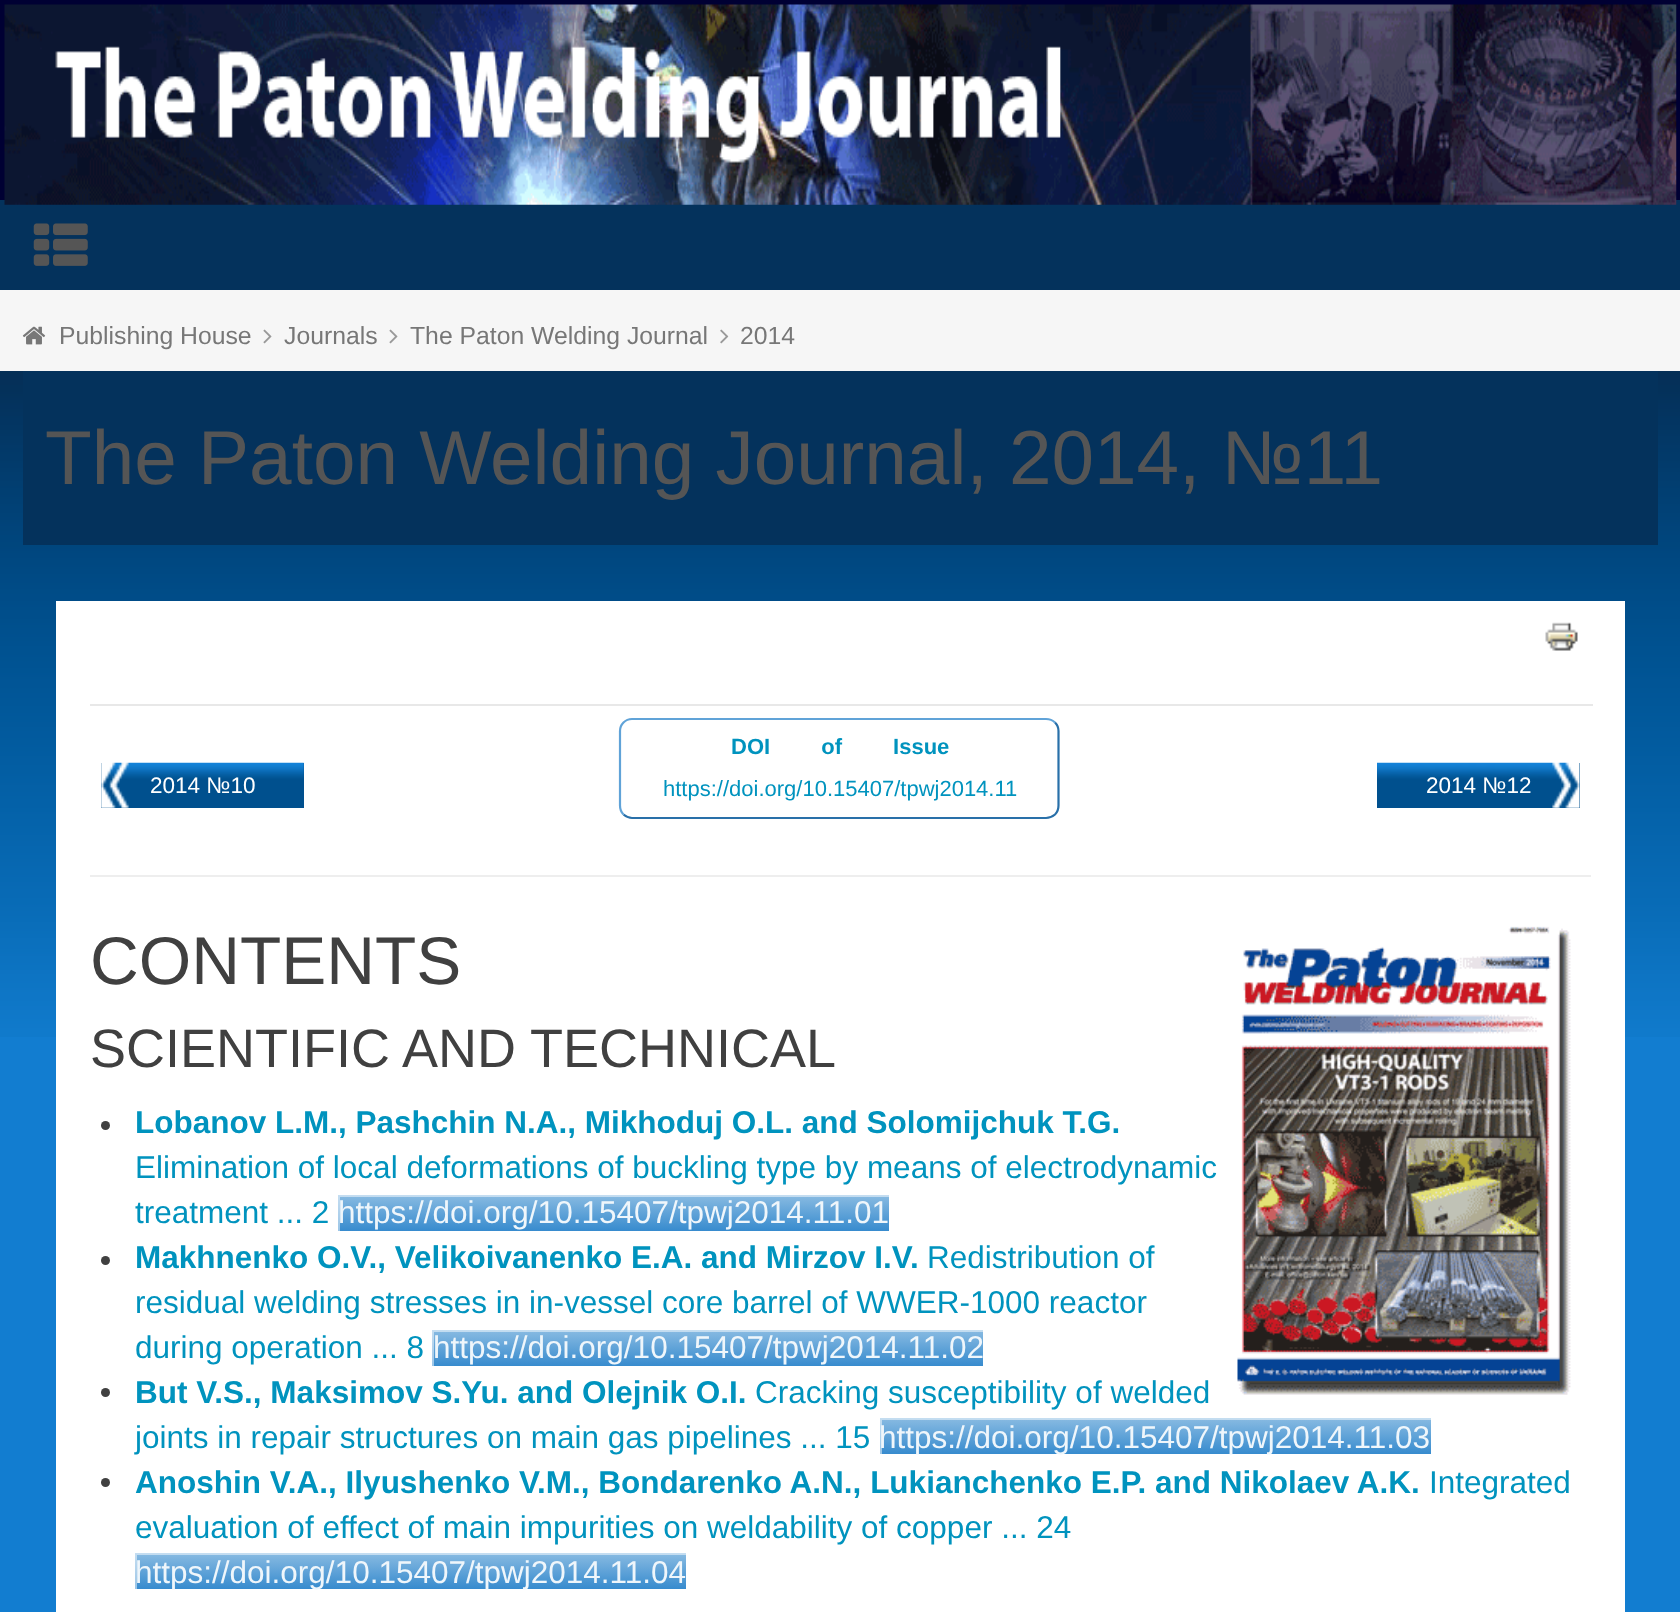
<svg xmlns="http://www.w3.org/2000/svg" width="1680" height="1612">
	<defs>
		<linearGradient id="g1" gradientUnits="userSpaceOnUse" x1="613" y1="1195" x2="613" y2="1231"><stop offset="0" stop-color="#89BBE2" /><stop offset="0.5" stop-color="#60A3D8" /><stop offset="1" stop-color="#378BCE" /></linearGradient>
		<clipPath id="clip1"><rect x="338" y="1195" width="551" height="36" /></clipPath>
		<linearGradient id="g2" gradientUnits="userSpaceOnUse" x1="708" y1="1330" x2="708" y2="1366"><stop offset="0" stop-color="#89BBE2" /><stop offset="0.5" stop-color="#60A3D8" /><stop offset="1" stop-color="#378BCE" /></linearGradient>
		<clipPath id="clip2"><rect x="432" y="1330" width="551" height="36" /></clipPath>
		<linearGradient id="g3" gradientUnits="userSpaceOnUse" x1="1155" y1="1418" x2="1155" y2="1454"><stop offset="0" stop-color="#89BBE2" /><stop offset="0.5" stop-color="#60A3D8" /><stop offset="1" stop-color="#378BCE" /></linearGradient>
		<clipPath id="clip3"><rect x="880" y="1418" width="551" height="36" /></clipPath>
		<linearGradient id="g4" gradientUnits="userSpaceOnUse" x1="411" y1="1553" x2="411" y2="1589"><stop offset="0" stop-color="#89BBE2" /><stop offset="0.5" stop-color="#60A3D8" /><stop offset="1" stop-color="#378BCE" /></linearGradient>
		<clipPath id="clip4"><rect x="135" y="1553" width="551" height="36" /></clipPath>
	</defs>
	<rect width="100%" height="100%" fill="#127DD0" />
	<image x="0" y="371" width="1680" height="666" href="assets/img1.png" />
	<rect x="0" y="200" width="1680" height="90" fill="#04325C" />
	<rect x="0" y="0" width="1680" height="200" fill="#000033" />
	<image x="4" y="4" width="1673" height="201" href="assets/img2.png" />
	<image x="33" y="223" width="55" height="43" href="assets/img3.png" />
	<rect x="0" y="290" width="1680" height="81" fill="#F6F6F6" />
	<image x="22" y="326" width="24" height="19" href="assets/img4.png" />
	<text x="59" y="344" font-family="Liberation Sans" font-size="24.75" fill="#777777">Publishing House</text>
	<image x="263" y="329" width="9" height="15" href="assets/img5.png" />
	<text x="284" y="344" font-family="Liberation Sans" font-size="24.75" fill="#777777">Journals</text>
	<image x="389" y="329" width="9" height="15" href="assets/img5.png" />
	<text x="410" y="344" font-family="Liberation Sans" font-size="24.75" fill="#777777">The Paton Welding Journal</text>
	<image x="720" y="329" width="9" height="15" href="assets/img6.png" />
	<text x="740" y="344" font-family="Liberation Sans" font-size="24.75" fill="#777777">2014</text>
	<rect x="23" y="371" width="1635" height="174" fill="#04325C" />
	<text x="45" y="484" font-family="Liberation Sans" font-size="76.5" fill="#555555">The Paton Welding Journal, 2014, №11</text>
	<rect x="56" y="601" width="1569" height="1011" fill="#FFFFFF" />
	<image x="1545" y="622" width="33" height="29" href="assets/img7.png" />
	<rect x="101" y="763" width="203" height="45" fill="#00508E" />
	<image x="101" y="762" width="203" height="46" href="assets/img8.png" />
	<text x="150" y="793" font-family="Liberation Sans" font-size="22.5" fill="#FFFFFF">2014 №10</text>
	<path d="M1055 722.5C1057.5 725 1058.5 728 1058.5 731V805.5C1058.5 809 1057.5 812 1055 814.5C1052.5 816.5 1049.5 818 1046 818H632C629 818 626 816.5 623.5 814.5" fill="none" stroke="#2970A9" stroke-width="2.2" />
	<path d="M623.5 814.5C621 812 620 809 620 805.5V731C620 728 621 725 623.5 722.5C626 720 629 719 632 719H1046C1049.5 719 1052.5 720 1055 722.5" fill="none" stroke="#60A3D8" stroke-width="2.2" />
	<text x="731" y="754" word-spacing="45" font-family="Liberation Sans" font-size="22" font-weight="700" fill="#0093BE">DOI of Issue</text>
	<text x="663" y="796" font-family="Liberation Sans" font-size="22" fill="#0093BE">https://doi.org/10.15407/tpwj2014.11</text>
	<rect x="90" y="704" width="1503" height="2" fill="#E8E8E8" />
	<rect x="1377" y="763" width="203" height="45" fill="#00508E" />
	<image x="1377" y="762" width="203" height="46" href="assets/img9.png" />
	<text x="1426" y="793" font-family="Liberation Sans" font-size="22.5" fill="#FFFFFF">2014 №12</text>
	<rect x="90" y="875" width="1501" height="2" fill="#EEEEEE" />
	<text x="90" y="984" font-family="Liberation Sans" font-size="67.5" fill="#404040">CONTENTS</text>
	<image x="1237" y="926" width="334" height="469" href="assets/img10.png" />
	<text x="90" y="1067" font-family="Liberation Sans" font-size="54" fill="#404040">SCIENTIFIC AND TECHNICAL</text>
	<circle cx="105.5" cy="1125.5" r="4.5" fill="#404040" />
	<text x="135" y="1133" font-family="Liberation Sans" font-size="31.5" font-weight="700" fill="#0093BE">Lobanov L.M., Pashchin N.A., Mikhoduj O.L. and Solomijchuk T.G.</text>
	<g font-family="Liberation Sans" font-size="31.5" fill="#0093BE">
		<text x="135" y="1178">Elimination of local deformations of buckling type by means of electrodynamic</text>
		<text x="135" y="1223">treatment ... 2</text>
	</g>
	<rect x="338" y="1195" width="551" height="36" fill="url(#g1)" />
	<g clip-path="url(#clip1)">
		<path d="M115 972H1112V1454H115ZM340 1197H891V1233H340Z" fill="#FFFFFF" fill-opacity="0.5" fill-rule="evenodd" />
	</g>
	<text x="338" y="1223" font-family="Liberation Sans" font-size="31.5" fill="#EFF6FB">https://doi.org/10.15407/tpwj2014.11.01</text>
	<circle cx="105.5" cy="1260.5" r="4.5" fill="#404040" />
	<text x="135" y="1268" font-family="Liberation Sans" font-size="31.5" font-weight="700" fill="#0093BE">Makhnenko O.V., Velikoivanenko E.A. and Mirzov I.V.</text>
	<g font-family="Liberation Sans" font-size="31.5" fill="#0093BE">
		<text x="927" y="1268">Redistribution of</text>
		<text x="135" y="1313">residual welding stresses in in-vessel core barrel of WWER-1000 reactor</text>
		<text x="135" y="1358">during operation ... 8</text>
	</g>
	<rect x="432" y="1330" width="551" height="36" fill="url(#g2)" />
	<g clip-path="url(#clip2)">
		<path d="M209 1107H1206V1588H209ZM434 1332H986V1368H434Z" fill="#FFFFFF" fill-opacity="0.5" fill-rule="evenodd" />
	</g>
	<text x="433" y="1358" font-family="Liberation Sans" font-size="31.5" fill="#EFF6FB">https://doi.org/10.15407/tpwj2014.11.02</text>
	<circle cx="105.5" cy="1392.5" r="4.5" fill="#404040" />
	<text x="135" y="1403" font-family="Liberation Sans" font-size="31.5" font-weight="700" fill="#0093BE">But V.S., Maksimov S.Yu. and Olejnik O.I.</text>
	<g font-family="Liberation Sans" font-size="31.5" fill="#0093BE">
		<text x="755" y="1403">Cracking susceptibility of welded</text>
		<text x="135" y="1448">joints in repair structures on main gas pipelines ... 15</text>
	</g>
	<rect x="880" y="1418" width="551" height="36" fill="url(#g3)" />
	<g clip-path="url(#clip3)">
		<path d="M657 1195H1654V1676H657ZM882 1420H1433V1456H882Z" fill="#FFFFFF" fill-opacity="0.5" fill-rule="evenodd" />
	</g>
	<text x="879" y="1448" font-family="Liberation Sans" font-size="31.5" fill="#EFF6FB">https://doi.org/10.15407/tpwj2014.11.03</text>
	<circle cx="105.5" cy="1482.5" r="4.5" fill="#404040" />
	<text x="135" y="1493" font-family="Liberation Sans" font-size="31.5" font-weight="700" fill="#0093BE">Anoshin V.A., Ilyushenko V.M., Bondarenko A.N., Lukianchenko E.P. and Nikolaev A.K.</text>
	<g font-family="Liberation Sans" font-size="31.5" fill="#0093BE">
		<text x="1429" y="1493">Integrated</text>
		<text x="135" y="1538">evaluation of effect of main impurities on weldability of copper ... 24</text>
	</g>
	<rect x="135" y="1553" width="551" height="36" fill="url(#g4)" />
	<g clip-path="url(#clip4)">
		<path d="M-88 1330H909V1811H-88ZM137 1555H688V1591H137Z" fill="#FFFFFF" fill-opacity="0.5" fill-rule="evenodd" />
	</g>
	<text x="135" y="1583" font-family="Liberation Sans" font-size="31.5" fill="#EFF6FB">https://doi.org/10.15407/tpwj2014.11.04</text>
</svg>
